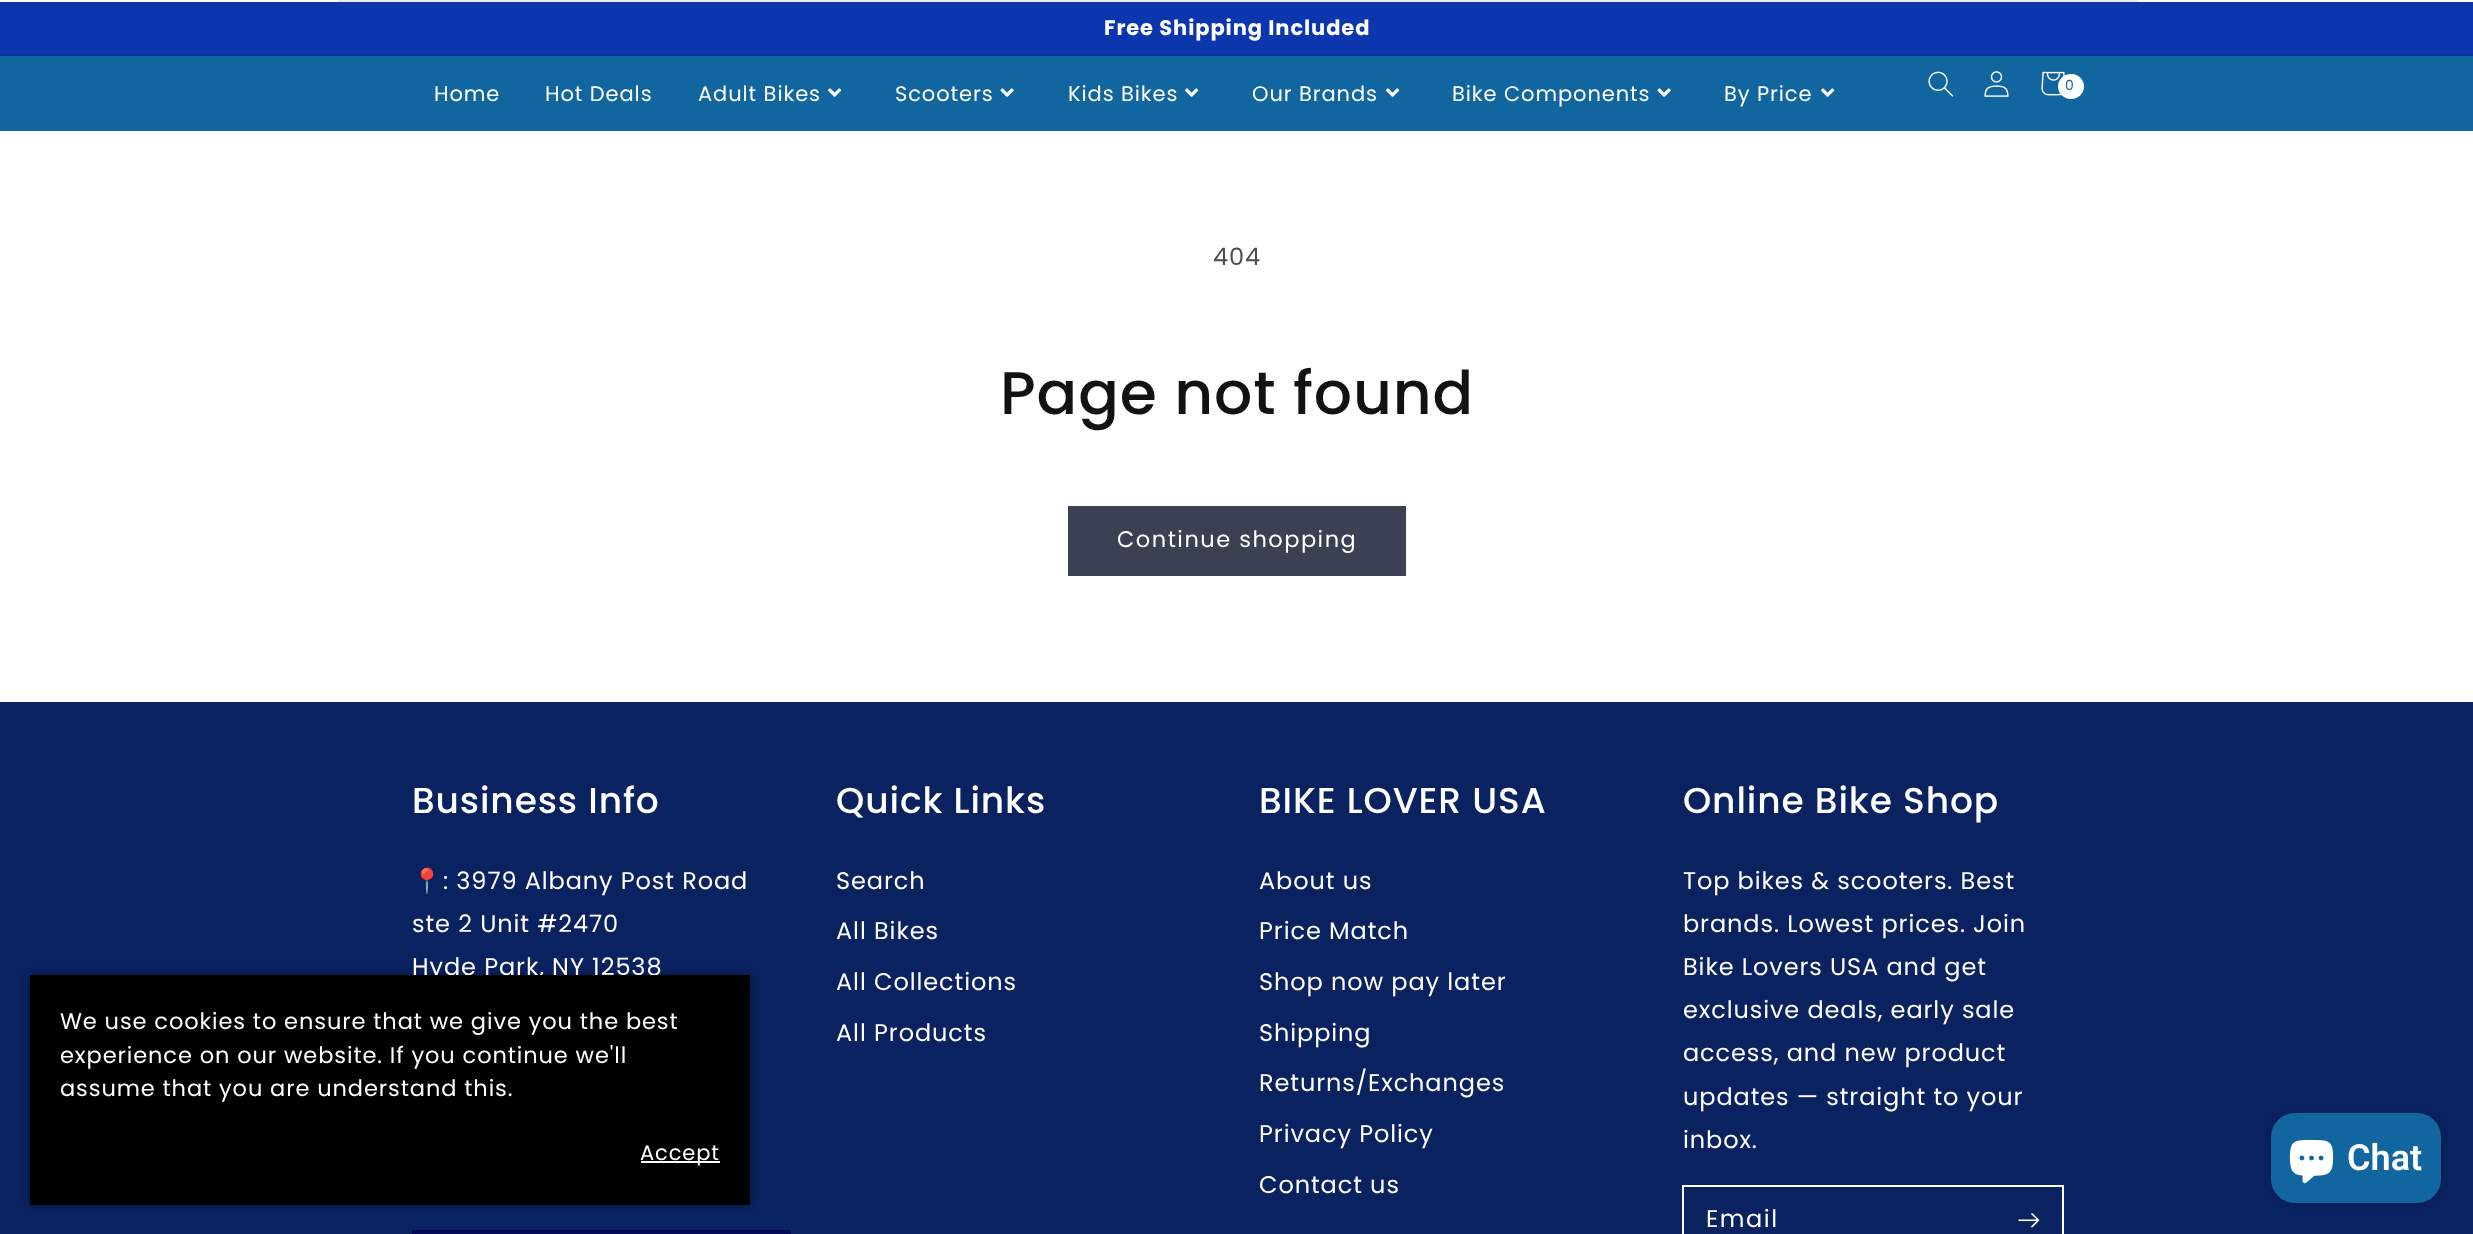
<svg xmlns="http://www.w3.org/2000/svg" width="2473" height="1234">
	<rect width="100%" height="100%" fill="#FFFFFF" />
	<rect x="338" y="0" width="1800" height="2" fill="#ECECEC" />
	<rect x="0" y="2" width="2473" height="52" fill="#0C36AD" />
	<rect x="0" y="54" width="2473" height="2" fill="#0C33A1" />
	<text x="1104" y="35" font-family="Poppins" font-size="21" font-weight="700" letter-spacing="0.9" fill="#FFFFFF">Free Shipping Included</text>
	<rect x="0" y="56" width="2473" height="75" fill="#12669F" />
	<g font-family="Poppins" font-size="21" letter-spacing="0.9" fill="#FFFFFF">
		<text x="434" y="101">Home</text>
		<text x="545" y="101">Hot Deals</text>
		<text x="698" y="101">Adult Bikes</text>
	</g>
	<image x="828" y="88" width="14" height="9" href="assets/img1.png" />
	<text x="895" y="101" font-family="Poppins" font-size="21" letter-spacing="0.9" fill="#FFFFFF">Scooters</text>
	<image x="1000" y="88" width="14" height="9" href="assets/img2.png" />
	<text x="1068" y="101" font-family="Poppins" font-size="21" letter-spacing="0.9" fill="#FFFFFF">Kids Bikes</text>
	<image x="1185" y="88" width="14" height="9" href="assets/img1.png" />
	<text x="1252" y="101" font-family="Poppins" font-size="21" letter-spacing="0.9" fill="#FFFFFF">Our Brands</text>
	<image x="1386" y="88" width="14" height="9" href="assets/img1.png" />
	<text x="1452" y="101" font-family="Poppins" font-size="21" letter-spacing="0.9" fill="#FFFFFF">Bike Components</text>
	<image x="1657" y="88" width="14" height="9" href="assets/img2.png" />
	<text x="1724" y="101" font-family="Poppins" font-size="21" letter-spacing="0.9" fill="#FFFFFF">By Price</text>
	<image x="1821" y="88" width="14" height="9" href="assets/img1.png" />
	<image x="1928" y="71" width="26" height="26" href="assets/img3.png" />
	<image x="1984" y="71" width="25" height="26" href="assets/img4.png" />
	<image x="2041" y="71" width="24" height="25" href="assets/img5.png" />
	<rect x="2058" y="74" width="26" height="25" rx="12.5" fill="#FFFFFF" />
	<text x="2065" y="90" font-family="Poppins" font-size="14" letter-spacing="0.9" fill="#12669F">0</text>
	<text x="1213" y="265" font-family="Poppins" font-size="24" letter-spacing="0.9" fill="#4D4D4D">404</text>
	<text x="1000" y="414" font-family="Poppins" font-size="60" font-weight="500" letter-spacing="0.9" fill="#121212">Page not found</text>
	<rect x="1069" y="507" width="336" height="68" fill="none" stroke="#3B4152" stroke-width="2" />
	<rect x="1070" y="508" width="334" height="66" fill="#3B4152" />
	<text x="1117" y="547" font-family="Poppins" font-size="22.5" letter-spacing="1.5" fill="#FFFFFF">Continue shopping</text>
	<rect x="0" y="702" width="2473" height="532" fill="#0B2260" />
	<rect x="30" y="975" width="720" height="230" fill="#000000" fill-opacity="0.4" filter="blur(4px)" />
	<text x="412" y="975" font-family="Poppins" font-size="24" letter-spacing="0.9" fill="#FFFFFF">Hyde Park, NY 12538</text>
	<rect x="30" y="975" width="720" height="230" fill="#000000" />
	<g font-family="Poppins" font-size="22.5" letter-spacing="0.9" fill="#FFFFFF">
		<text x="60" y="1029">We use cookies to ensure that we give you the best</text>
		<text x="60" y="1063">experience on our website. If you continue we'll</text>
		<text x="60" y="1096">assume that you are understand this.</text>
	</g>
	<rect x="641" y="1161" width="79" height="2" fill="#FFFFFF" />
	<text x="640" y="1160" font-family="Poppins" font-size="21" letter-spacing="0.9" fill="#FFFFFF">Accept</text>
	<text x="412" y="813" font-family="Poppins" font-size="36" font-weight="500" letter-spacing="0.9" fill="#FFFFFF">Business Info</text>
	<text x="412" y="889" font-family="Noto Color Emoji" font-size="24" letter-spacing="0.9" fill="#FFFFFF">📍</text>
	<g font-family="Poppins" font-size="24" letter-spacing="0.9" fill="#FFFFFF">
		<text x="443" y="889">: 3979 Albany Post Road</text>
		<text x="412" y="932">ste 2 Unit #2470</text>
	</g>
	<rect x="412" y="1230" width="379" height="4" fill="#000A59" />
	<text x="836" y="813" font-family="Poppins" font-size="36" font-weight="500" letter-spacing="0.9" fill="#FFFFFF">Quick Links</text>
	<g font-family="Poppins" font-size="24" letter-spacing="0.9" fill="#FFFFFF">
		<text x="836" y="889">Search</text>
		<text x="836" y="939">All Bikes</text>
		<text x="836" y="990">All Collections</text>
		<text x="836" y="1041">All Products</text>
	</g>
	<text x="1259" y="813" font-family="Poppins" font-size="36" font-weight="500" letter-spacing="0.9" fill="#FFFFFF">BIKE LOVER USA</text>
	<g font-family="Poppins" font-size="24" letter-spacing="0.9" fill="#FFFFFF">
		<text x="1259" y="889">About us</text>
		<text x="1259" y="939">Price Match</text>
		<text x="1259" y="990">Shop now pay later</text>
		<text x="1259" y="1041">Shipping</text>
		<text x="1259" y="1091">Returns/Exchanges</text>
		<text x="1259" y="1142">Privacy Policy</text>
		<text x="1259" y="1193">Contact us</text>
	</g>
	<text x="1683" y="813" font-family="Poppins" font-size="36" font-weight="500" letter-spacing="0.9" fill="#FFFFFF">Online Bike Shop</text>
	<g font-family="Poppins" font-size="24" letter-spacing="0.9" fill="#FFFFFF">
		<text x="1683" y="889">Top bikes &amp; scooters. Best</text>
		<text x="1683" y="932">brands. Lowest prices. Join</text>
		<text x="1683" y="975">Bike Lovers USA and get</text>
		<text x="1683" y="1018">exclusive deals, early sale</text>
		<text x="1683" y="1061">access, and new product</text>
		<text x="1683" y="1105">updates — straight to your</text>
		<text x="1683" y="1148">inbox.</text>
	</g>
	<rect x="1683" y="1186" width="380" height="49" fill="none" stroke="#FFFFFF" stroke-width="2" />
	<text x="1706" y="1227" font-family="Poppins" font-size="24" letter-spacing="1.5" fill="#FFFFFF">Email</text>
	<image x="2018" y="1213" width="22" height="15" href="assets/img6.png" />
	<rect x="2271" y="1113" width="170" height="90" rx="24" fill="#000000" fill-opacity="0.15" filter="blur(4px)" />
	<rect x="2271" y="1113" width="170" height="90" rx="24" fill="#12669F" />
	<image x="2289" y="1140" width="45" height="44" href="assets/img7.png" />
	<text x="2347" y="1170" font-family="Roboto" font-size="36" font-weight="600" fill="#FFFFFF">Chat</text>
</svg>
